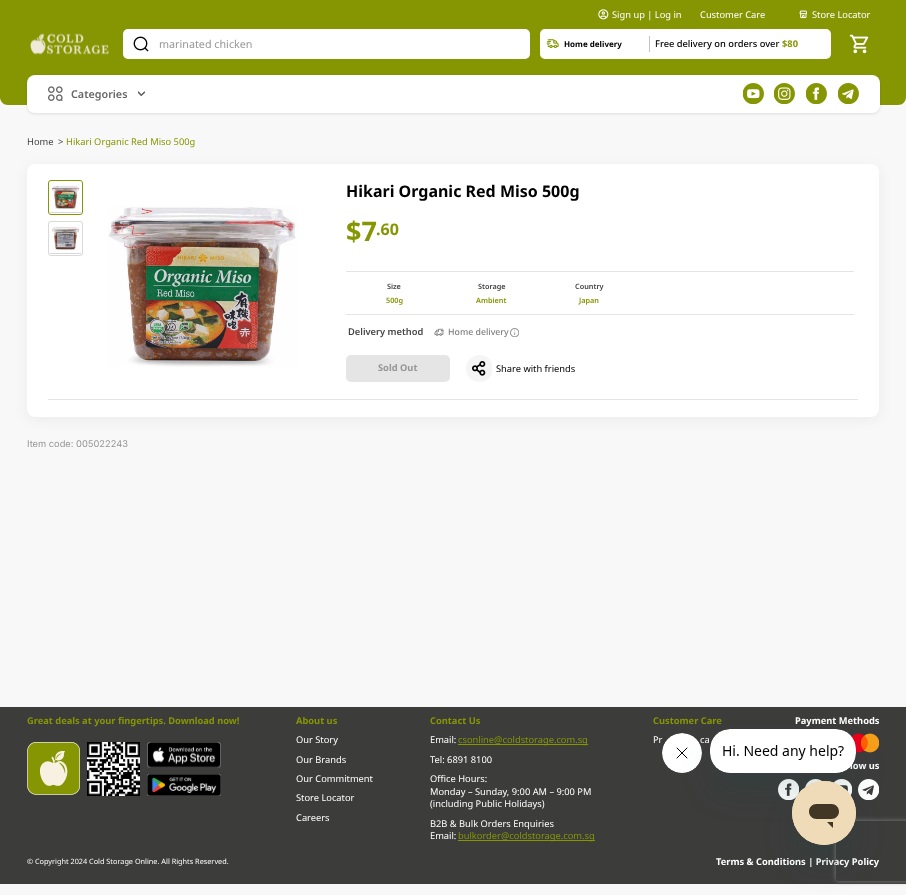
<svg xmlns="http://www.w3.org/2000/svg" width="906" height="895">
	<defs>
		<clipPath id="clip1"><path d="M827 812H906V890H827ZM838 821H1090C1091 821 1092 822 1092 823V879C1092 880 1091 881 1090 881H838C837 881 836 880 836 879V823C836 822 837 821 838 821Z" clip-rule="evenodd" /></clipPath>
	</defs>
	<rect width="100%" height="100%" fill="#F8F8F8" />
	<path d="M0 0H906V97C906 101.5 902.5 105 898 105H8C3.5 105 0 101.5 0 97Z" fill="#869603" />
	<image x="598" y="9" width="11" height="11" href="assets/img1.png" />
	<g font-family="Noto Sans" font-size="9.3" fill="#FFFFFF">
		<text x="612" y="18">Sign up | Log in</text>
		<text x="700" y="18">Customer Care</text>
	</g>
	<image x="799" y="10" width="9" height="9" href="assets/img2.png" />
	<text x="812" y="18" font-family="Noto Sans" font-size="9.3" fill="#FFFFFF">Store Locator</text>
	<image x="30" y="33" width="79" height="22" href="assets/img3.png" />
	<rect x="123" y="29" width="407" height="30" rx="5" fill="#FFFFFF" />
	<image x="133" y="36" width="16" height="16" href="assets/img4.png" />
	<text x="159" y="48" font-family="Noto Sans" font-size="10.75" fill="#969696">marinated chicken</text>
	<rect x="540" y="29" width="291" height="30" rx="5" fill="#FFFFFF" />
	<image x="546" y="39" width="13" height="10" href="assets/img5.png" />
	<text x="564" y="47" font-family="Noto Sans" font-size="8" font-weight="700" fill="#000000">Home delivery</text>
	<rect x="649" y="36" width="1" height="16" fill="#C4C4C4" />
	<text x="655" y="47" font-family="Noto Sans" font-size="9.3" font-weight="500" fill="#000000">Free delivery on orders over</text>
	<text x="782" y="47" font-family="Noto Sans" font-size="9.3" font-weight="700" fill="#869603">$80</text>
	<image x="849" y="34" width="20" height="20" href="assets/img6.png" />
	<rect x="27" y="76" width="853" height="38" rx="8" fill="#000000" fill-opacity="0.1" filter="blur(1.5px)" />
	<rect x="27" y="75" width="853" height="38" rx="8" fill="#FFFFFF" />
	<image x="48" y="86" width="15" height="15" href="assets/img7.png" />
	<text x="71" y="98" font-family="Noto Sans" font-size="10.75" font-weight="600" fill="#666666">Categories</text>
	<image x="138" y="91" width="7" height="5" href="assets/img8.png" />
	<image x="743" y="83" width="21" height="21" href="assets/img9.png" />
	<image x="774" y="83" width="21" height="21" href="assets/img10.png" />
	<image x="806" y="83" width="21" height="21" href="assets/img11.png" />
	<image x="838" y="83" width="21" height="21" href="assets/img12.png" />
	<g font-family="Noto Sans" font-size="9.3" fill="#444444">
		<text x="27" y="145">Home</text>
		<text x="58" y="145">&gt;</text>
	</g>
	<rect x="27" y="167" width="852" height="253" rx="8" fill="#000000" fill-opacity="0.05" filter="blur(6.5px)" />
	<text x="66" y="145" font-family="Noto Sans" font-size="9.3" fill="#869603">Hikari Organic Red Miso 500g</text>
	<rect x="27" y="164" width="852" height="253" rx="8" fill="#FFFFFF" />
	<rect x="48" y="399" width="810" height="1" fill="#E5E5E5" />
	<rect x="48.5" y="180.5" width="34" height="34" rx="2.5" fill="none" stroke="#869603" />
	<rect x="50" y="212" width="31" height="1" fill="#D9D9D9" />
	<image x="52" y="185" width="28" height="24" href="assets/img13.png" />
	<rect x="48.5" y="221.5" width="34" height="34" rx="2.5" fill="none" stroke="#D9D9D9" />
	<rect x="50" y="253" width="31" height="1" fill="#D9D9D9" />
	<image x="52" y="226" width="28" height="24" href="assets/img14.png" />
	<image x="108" y="205" width="190" height="162" href="assets/img15.png" />
	<text x="346" y="197" font-family="Noto Sans" font-size="16" font-weight="700" fill="#000000">Hikari Organic Red Miso 500g</text>
	<text x="346" y="241" font-family="Noto Sans" font-size="27" font-weight="700" fill="#869603">$7</text>
	<text x="376" y="235" font-family="Noto Sans" font-size="16" font-weight="700" fill="#869603">.60</text>
	<rect x="346" y="271" width="508" height="1" fill="#E5E5E5" />
	<rect x="346" y="314" width="508" height="1" fill="#E5E5E5" />
	<text x="387" y="289" font-family="Noto Sans" font-size="7.3" font-weight="600" fill="#444444">Size</text>
	<text x="386" y="303" font-family="Noto Sans" font-size="7.3" font-weight="600" fill="#869603">500g</text>
	<text x="478" y="289" font-family="Noto Sans" font-size="7.3" font-weight="600" fill="#444444">Storage</text>
	<text x="476" y="303" font-family="Noto Sans" font-size="7.3" font-weight="600" fill="#869603">Ambient</text>
	<text x="575" y="289" font-family="Noto Sans" font-size="7.3" font-weight="600" fill="#444444">Country</text>
	<text x="579" y="303" font-family="Noto Sans" font-size="7.3" font-weight="600" fill="#869603">Japan</text>
	<text x="348" y="335" font-family="Noto Sans" font-size="9.3" font-weight="600" fill="#444444">Delivery method</text>
	<image x="434" y="328" width="11" height="8" href="assets/img16.png" />
	<text x="448" y="335" font-family="Noto Sans" font-size="8.75" font-weight="500" fill="#808080">Home delivery</text>
	<image x="510" y="328" width="9" height="9" href="assets/img17.png" />
	<rect x="346" y="355" width="104" height="27" rx="5" fill="#E5E5E5" />
	<text x="378" y="371" font-family="Noto Sans" font-size="9.3" font-weight="700" fill="#969696">Sold Out</text>
	<image x="466" y="355" width="26" height="27" href="assets/img18.png" />
	<text x="496" y="372" font-family="Noto Sans" font-size="9.3" fill="#000000">Share with friends</text>
	<text x="27" y="447" font-family="Inter" font-size="9.3" fill="#969696">Item code: 005022243</text>
	<rect x="0" y="707" width="906" height="177" fill="#3C3C3B" />
	<text x="27" y="724" font-family="Noto Sans" font-size="9.3" font-weight="700" fill="#869603">Great deals at your fingertips. Download now!</text>
	<image x="27" y="742" width="53" height="53" href="assets/img19.png" />
	<image x="87" y="742" width="53" height="54" href="assets/img20.png" />
	<image x="147" y="742" width="74" height="26" href="assets/img21.png" />
	<image x="147" y="774" width="74" height="22" href="assets/img22.png" />
	<text x="296" y="724" font-family="Noto Sans" font-size="9.3" font-weight="700" fill="#869603">About us</text>
	<g font-family="Noto Sans" font-size="9.3" fill="#FFFFFF">
		<text x="296" y="743">Our Story</text>
		<text x="296" y="763">Our Brands</text>
		<text x="296" y="782">Our Commitment</text>
		<text x="296" y="801">Store Locator</text>
		<text x="296" y="821">Careers</text>
	</g>
	<text x="430" y="724" font-family="Noto Sans" font-size="9.3" font-weight="700" fill="#869603">Contact Us</text>
	<text x="430" y="743" font-family="Noto Sans" font-size="9.3" fill="#FFFFFF">Email:</text>
	<rect x="458" y="744" width="130" height="1" fill="#869603" />
	<text x="458" y="743" font-family="Noto Sans" font-size="9.3" fill="#869603">csonline@coldstorage.com.sg</text>
	<g font-family="Noto Sans" font-size="9.3" fill="#FFFFFF">
		<text x="430" y="763">Tel: 6891 8100</text>
		<text x="430" y="782">Office Hours:</text>
		<text x="430" y="795">Monday – Sunday, 9:00 AM – 9:00 PM</text>
		<text x="430" y="807">(including Public Holidays)</text>
		<text x="430" y="827">B2B &amp; Bulk Orders Enquiries</text>
		<text x="430" y="839">Email:</text>
	</g>
	<rect x="458" y="840" width="137" height="1" fill="#869603" />
	<text x="458" y="839" font-family="Noto Sans" font-size="9.3" fill="#869603">bulkorder@coldstorage.com.sg</text>
	<text x="653" y="724" font-family="Noto Sans" font-size="9.3" font-weight="700" fill="#869603">Customer Care</text>
	<g font-family="Noto Sans" font-size="9.3" fill="#FFFFFF">
		<text x="653" y="743">Pr</text>
		<text x="700" y="743">ca</text>
	</g>
	<text x="795" y="724" font-family="Noto Sans" font-size="9.3" font-weight="700" fill="#FFFFFF">Payment Methods</text>
	<image x="851" y="733" width="28" height="20" href="assets/img23.png" />
	<text x="850" y="769" font-family="Noto Sans" font-size="9.3" font-weight="700" fill="#FFFFFF">low us</text>
	<image x="778" y="779" width="21" height="21" href="assets/img24.png" />
	<image x="805" y="779" width="17" height="9" href="assets/img25.png" />
	<image x="833" y="779" width="19" height="17" href="assets/img26.png" />
	<image x="858" y="779" width="21" height="21" href="assets/img27.png" />
	<text x="27" y="864" font-family="Noto Sans" font-size="7.3" fill="#FFFFFF">© Copyright 2024 Cold Storage Online. All Rights Reserved.</text>
	<text x="716" y="865" font-family="Noto Sans" font-size="9.3" font-weight="700" fill="#FFFFFF">Terms &amp; Conditions | Privacy Policy</text>
	<image x="662" y="733" width="40" height="40" href="assets/img29.png" />
	<rect x="710" y="749" width="146" height="44" rx="20" fill="#17494D" fill-opacity="0.15" filter="blur(15px)" />
	<image x="710" y="729" width="146" height="44" href="assets/img28.png" />
	<rect x="792" y="801" width="64" height="64" rx="32" fill="#17494D" fill-opacity="0.15" filter="blur(15px)" />
	<g clip-path="url(#clip1)">
		<rect x="836" y="821" width="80" height="60" rx="2" fill="#808080" filter="blur(2.5px)" />
	</g>
	<image x="792" y="781" width="64" height="64" href="assets/img30.png" />
</svg>
